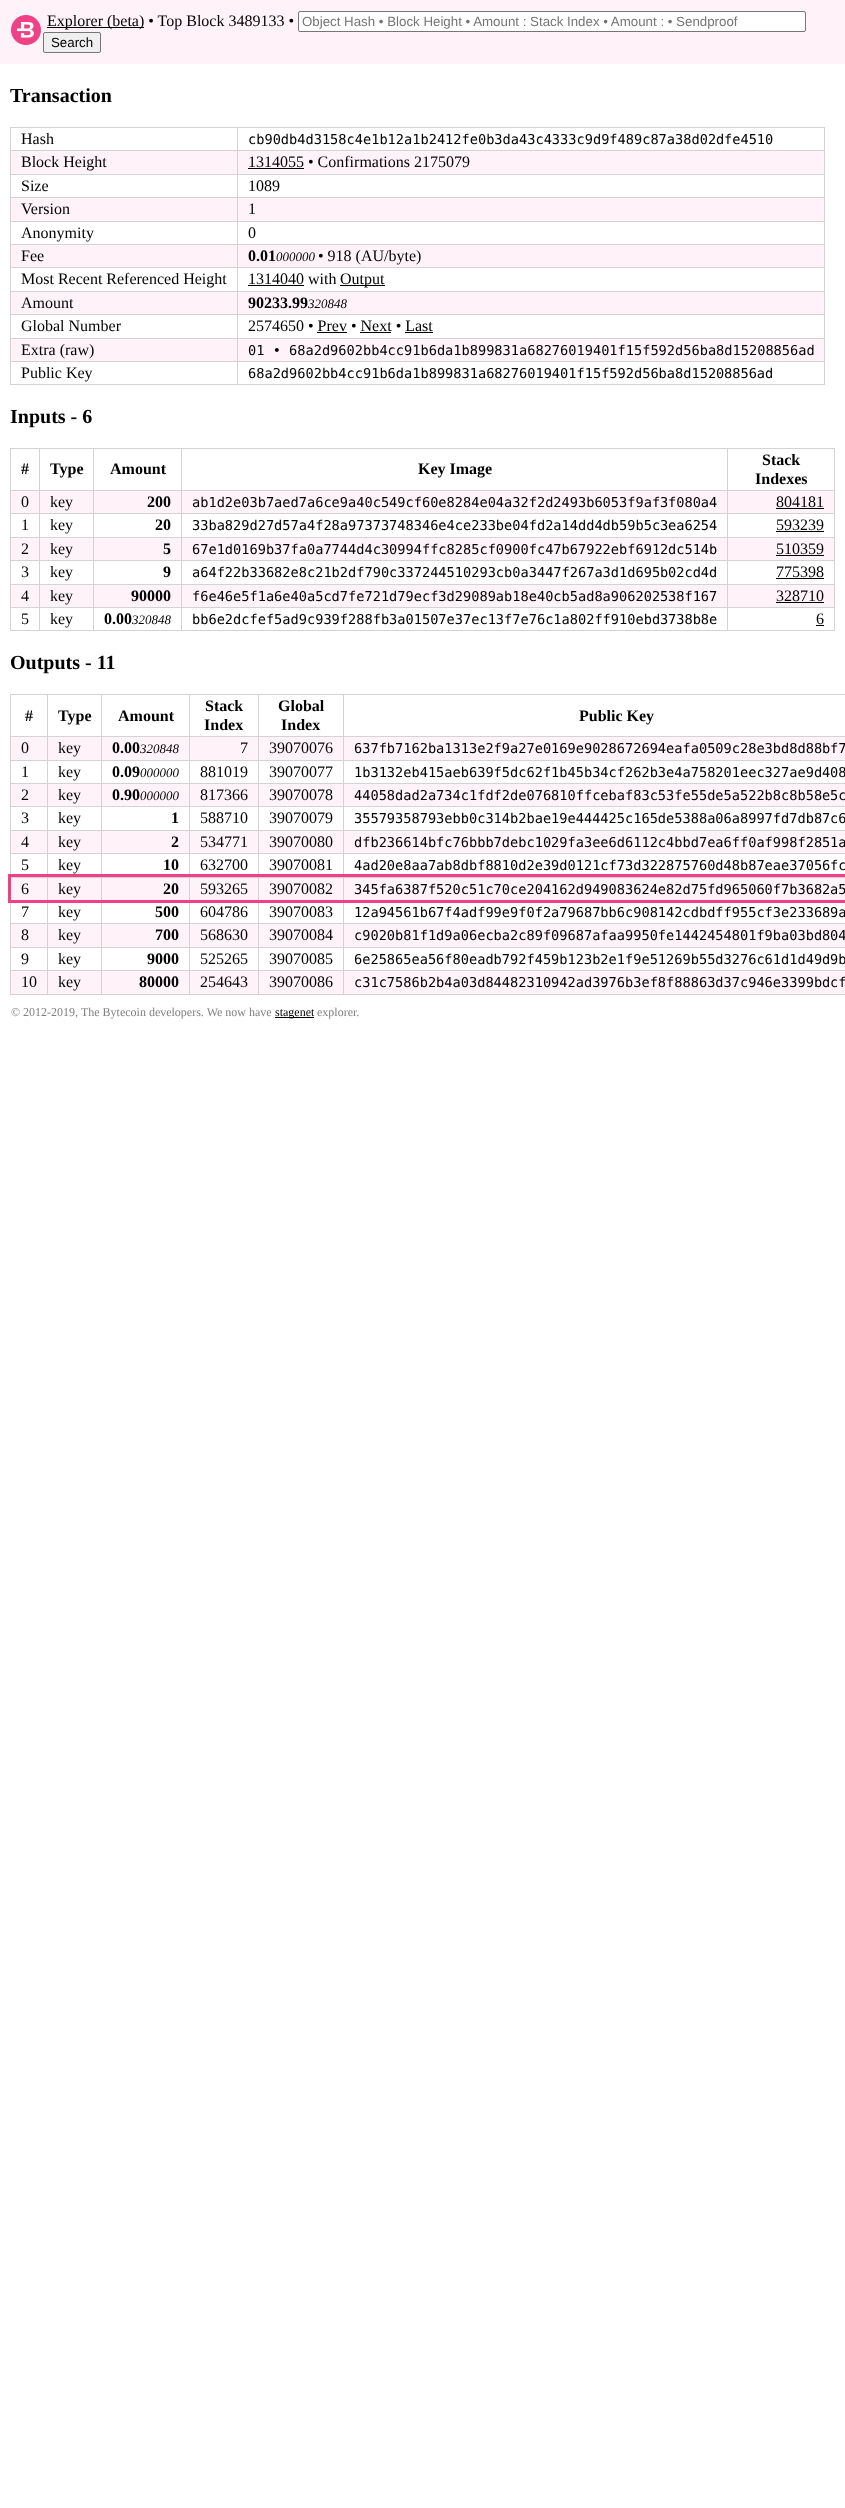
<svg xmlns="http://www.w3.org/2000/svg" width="845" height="2508">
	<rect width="100%" height="100%" fill="#FFFFFF" />
	<rect x="0" y="0" width="845" height="64" fill="#FFF3F9" />
	<image x="11" y="15" width="30" height="30" href="assets/img1.png" />
	<rect x="47" y="27" width="97" height="1" fill="#000000" />
	<text x="47" y="26" font-family="Liberation Serif" font-size="16" fill="#000000">Explorer (beta) • Top Block 3489133 •</text>
	<rect x="298.5" y="11.5" width="507" height="20" rx="1.5" fill="#FFFFFF" stroke="#767676" />
	<text x="302" y="26" font-family="Liberation Sans" font-size="13.3" fill="#757575">Object Hash • Block Height • Amount : Stack Index • Amount : • Sendproof</text>
	<rect x="43.5" y="32.5" width="57" height="20" rx="1.5" fill="#EFEFEF" stroke="#767676" />
	<text x="51" y="47" font-family="Liberation Sans" font-size="13.3" fill="#000000">Search</text>
	<text x="10" y="102" font-family="Liberation Serif" font-size="20" font-weight="700" fill="#000000">Transaction</text>
	<rect x="237" y="127" width="588" height="1" fill="#D3D3D3" />
	<rect x="237" y="150" width="588" height="1" fill="#D3D3D3" />
	<rect x="11" y="151" width="813" height="23" fill="#FFF3F9" />
	<rect x="237" y="174" width="588" height="1" fill="#D3D3D3" />
	<rect x="237" y="197" width="588" height="1" fill="#D3D3D3" />
	<rect x="11" y="198" width="813" height="23" fill="#FFF3F9" />
	<rect x="237" y="221" width="588" height="1" fill="#D3D3D3" />
	<rect x="237" y="244" width="588" height="1" fill="#D3D3D3" />
	<rect x="11" y="245" width="813" height="22" fill="#FFF3F9" />
	<rect x="237" y="267" width="588" height="1" fill="#D3D3D3" />
	<rect x="237" y="291" width="588" height="1" fill="#D3D3D3" />
	<rect x="11" y="292" width="813" height="22" fill="#FFF3F9" />
	<rect x="237" y="314" width="588" height="1" fill="#D3D3D3" />
	<rect x="237" y="338" width="588" height="1" fill="#D3D3D3" />
	<rect x="11" y="339" width="813" height="22" fill="#FFF3F9" />
	<rect x="237" y="361" width="588" height="1" fill="#D3D3D3" />
	<rect x="824" y="361" width="1" height="24" fill="#D3D3D3" />
	<rect x="237" y="384" width="588" height="1" fill="#D3D3D3" />
	<rect x="237" y="361" width="1" height="24" fill="#D3D3D3" />
	<rect x="10" y="361" width="228" height="1" fill="#D3D3D3" />
	<rect x="237" y="338" width="1" height="24" fill="#D3D3D3" />
	<rect x="10" y="338" width="228" height="1" fill="#D3D3D3" />
	<rect x="237" y="314" width="1" height="25" fill="#D3D3D3" />
	<rect x="10" y="314" width="228" height="1" fill="#D3D3D3" />
	<rect x="237" y="291" width="1" height="24" fill="#D3D3D3" />
	<rect x="10" y="291" width="228" height="1" fill="#D3D3D3" />
	<rect x="237" y="267" width="1" height="25" fill="#D3D3D3" />
	<rect x="10" y="267" width="228" height="1" fill="#D3D3D3" />
	<rect x="237" y="244" width="1" height="24" fill="#D3D3D3" />
	<rect x="10" y="244" width="228" height="1" fill="#D3D3D3" />
	<rect x="237" y="221" width="1" height="24" fill="#D3D3D3" />
	<rect x="10" y="221" width="228" height="1" fill="#D3D3D3" />
	<rect x="237" y="197" width="1" height="25" fill="#D3D3D3" />
	<rect x="10" y="197" width="228" height="1" fill="#D3D3D3" />
	<rect x="237" y="174" width="1" height="24" fill="#D3D3D3" />
	<rect x="10" y="174" width="228" height="1" fill="#D3D3D3" />
	<rect x="237" y="150" width="1" height="25" fill="#D3D3D3" />
	<rect x="10" y="150" width="228" height="1" fill="#D3D3D3" />
	<rect x="237" y="127" width="1" height="24" fill="#D3D3D3" />
	<rect x="10" y="127" width="228" height="1" fill="#D3D3D3" />
	<rect x="10" y="384" width="228" height="1" fill="#D3D3D3" />
	<rect x="10" y="361" width="1" height="24" fill="#D3D3D3" />
	<rect x="10" y="338" width="1" height="24" fill="#D3D3D3" />
	<rect x="10" y="314" width="1" height="25" fill="#D3D3D3" />
	<rect x="10" y="291" width="1" height="24" fill="#D3D3D3" />
	<rect x="10" y="267" width="1" height="25" fill="#D3D3D3" />
	<rect x="10" y="244" width="1" height="24" fill="#D3D3D3" />
	<rect x="10" y="221" width="1" height="24" fill="#D3D3D3" />
	<rect x="10" y="197" width="1" height="25" fill="#D3D3D3" />
	<rect x="10" y="174" width="1" height="24" fill="#D3D3D3" />
	<rect x="10" y="150" width="1" height="25" fill="#D3D3D3" />
	<rect x="10" y="127" width="1" height="24" fill="#D3D3D3" />
	<text x="21" y="144" font-family="Liberation Serif" font-size="16" fill="#000000">Hash</text>
	<rect x="824" y="338" width="1" height="24" fill="#D3D3D3" />
	<rect x="824" y="314" width="1" height="25" fill="#D3D3D3" />
	<rect x="824" y="291" width="1" height="24" fill="#D3D3D3" />
	<rect x="824" y="267" width="1" height="25" fill="#D3D3D3" />
	<rect x="824" y="244" width="1" height="24" fill="#D3D3D3" />
	<rect x="824" y="221" width="1" height="24" fill="#D3D3D3" />
	<rect x="824" y="197" width="1" height="25" fill="#D3D3D3" />
	<rect x="824" y="174" width="1" height="24" fill="#D3D3D3" />
	<rect x="824" y="150" width="1" height="25" fill="#D3D3D3" />
	<rect x="824" y="127" width="1" height="24" fill="#D3D3D3" />
	<g font-family="DejaVu Sans Mono" font-size="13.65" fill="#000000">
		<text x="248" y="144">cb90db4d3158c4e1b12a1b2412fe0b3da43c4333c9d9f489c87a38d02d</text>
		<text x="724" y="144">fe4510</text>
	</g>
	<g font-family="Liberation Serif" font-size="16" fill="#000000">
		<text x="21" y="167">Block Height</text>
		<text x="248" y="167">1314055 • Confirmations 2175079</text>
	</g>
	<rect x="248" y="168" width="56" height="1" fill="#000000" />
	<g font-family="Liberation Serif" font-size="16" fill="#000000">
		<text x="21" y="191">Size</text>
		<text x="248" y="191">1089</text>
		<text x="21" y="214">Version</text>
		<text x="248" y="214">1</text>
		<text x="21" y="238">Anonymity</text>
		<text x="248" y="238">0</text>
		<text x="21" y="261">Fee</text>
	</g>
	<text x="248" y="261" font-family="Liberation Serif" font-size="16" font-weight="700" fill="#000000">0.01</text>
	<text x="276" y="261" font-family="Liberation Serif" font-size="13" font-style="italic" fill="#000000">000000</text>
	<g font-family="Liberation Serif" font-size="16" fill="#000000">
		<text x="318" y="261">• 918 (AU/byte)</text>
		<text x="21" y="284">Most Recent Referenced Height</text>
		<text x="248" y="284">1314040 with</text>
	</g>
	<rect x="248" y="285" width="56" height="1" fill="#000000" />
	<rect x="340" y="285" width="45" height="1" fill="#000000" />
	<g font-family="Liberation Serif" font-size="16" fill="#000000">
		<text x="340" y="284">Output</text>
		<text x="21" y="308">Amount</text>
	</g>
	<text x="248" y="308" font-family="Liberation Serif" font-size="16" font-weight="700" fill="#000000">90233.99</text>
	<text x="308" y="308" font-family="Liberation Serif" font-size="13" font-style="italic" fill="#000000">320848</text>
	<g font-family="Liberation Serif" font-size="16" fill="#000000">
		<text x="21" y="331">Global Number</text>
		<text x="248" y="331">2574650 • Prev • Next • Last</text>
	</g>
	<rect x="317" y="332" width="30" height="1" fill="#000000" />
	<rect x="360" y="332" width="31" height="1" fill="#000000" />
	<rect x="405" y="332" width="28" height="1" fill="#000000" />
	<text x="21" y="355" font-family="Liberation Serif" font-size="16" fill="#000000">Extra (raw)</text>
	<text x="248" y="355" font-family="DejaVu Sans Mono" font-size="13.65" fill="#000000">01 • 68a2d9602bb4cc91b6da1b899831a68276019401f15f592d56ba8d15208856ad</text>
	<text x="21" y="378" font-family="Liberation Serif" font-size="16" fill="#000000">Public Key</text>
	<g font-family="DejaVu Sans Mono" font-size="13.65" fill="#000000">
		<text x="248" y="378">68a2d9602bb4cc91b6da1b899831a68276019401f15f592d56ba8d1520</text>
		<text x="724" y="378">8856ad</text>
	</g>
	<text x="10" y="423" font-family="Liberation Serif" font-size="20" font-weight="700" fill="#000000">Inputs - 6</text>
	<rect x="727" y="448" width="108" height="1" fill="#D3D3D3" />
	<rect x="727" y="490" width="108" height="1" fill="#D3D3D3" />
	<rect x="11" y="491" width="823" height="22" fill="#FFF3F9" />
	<rect x="727" y="513" width="108" height="1" fill="#D3D3D3" />
	<rect x="727" y="537" width="108" height="1" fill="#D3D3D3" />
	<rect x="11" y="538" width="823" height="22" fill="#FFF3F9" />
	<rect x="727" y="560" width="108" height="1" fill="#D3D3D3" />
	<rect x="727" y="584" width="108" height="1" fill="#D3D3D3" />
	<rect x="11" y="585" width="823" height="22" fill="#FFF3F9" />
	<rect x="727" y="607" width="108" height="1" fill="#D3D3D3" />
	<rect x="834" y="607" width="1" height="24" fill="#D3D3D3" />
	<rect x="727" y="630" width="108" height="1" fill="#D3D3D3" />
	<rect x="727" y="607" width="1" height="24" fill="#D3D3D3" />
	<rect x="181" y="607" width="547" height="1" fill="#D3D3D3" />
	<rect x="727" y="584" width="1" height="24" fill="#D3D3D3" />
	<rect x="181" y="584" width="547" height="1" fill="#D3D3D3" />
	<rect x="727" y="560" width="1" height="25" fill="#D3D3D3" />
	<rect x="181" y="560" width="547" height="1" fill="#D3D3D3" />
	<rect x="727" y="537" width="1" height="24" fill="#D3D3D3" />
	<rect x="181" y="537" width="547" height="1" fill="#D3D3D3" />
	<rect x="727" y="513" width="1" height="25" fill="#D3D3D3" />
	<rect x="181" y="513" width="547" height="1" fill="#D3D3D3" />
	<rect x="727" y="490" width="1" height="24" fill="#D3D3D3" />
	<rect x="181" y="490" width="547" height="1" fill="#D3D3D3" />
	<rect x="727" y="448" width="1" height="43" fill="#D3D3D3" />
	<rect x="181" y="448" width="547" height="1" fill="#D3D3D3" />
	<rect x="181" y="630" width="547" height="1" fill="#D3D3D3" />
	<rect x="181" y="607" width="1" height="24" fill="#D3D3D3" />
	<rect x="93" y="607" width="89" height="1" fill="#D3D3D3" />
	<rect x="181" y="584" width="1" height="24" fill="#D3D3D3" />
	<rect x="93" y="584" width="89" height="1" fill="#D3D3D3" />
	<rect x="181" y="560" width="1" height="25" fill="#D3D3D3" />
	<rect x="93" y="560" width="89" height="1" fill="#D3D3D3" />
	<rect x="181" y="537" width="1" height="24" fill="#D3D3D3" />
	<rect x="93" y="537" width="89" height="1" fill="#D3D3D3" />
	<rect x="181" y="513" width="1" height="25" fill="#D3D3D3" />
	<rect x="93" y="513" width="89" height="1" fill="#D3D3D3" />
	<rect x="181" y="490" width="1" height="24" fill="#D3D3D3" />
	<rect x="93" y="490" width="89" height="1" fill="#D3D3D3" />
	<rect x="181" y="448" width="1" height="43" fill="#D3D3D3" />
	<rect x="93" y="448" width="89" height="1" fill="#D3D3D3" />
	<rect x="93" y="630" width="89" height="1" fill="#D3D3D3" />
	<rect x="93" y="607" width="1" height="24" fill="#D3D3D3" />
	<rect x="39" y="607" width="55" height="1" fill="#D3D3D3" />
	<rect x="93" y="584" width="1" height="24" fill="#D3D3D3" />
	<rect x="39" y="584" width="55" height="1" fill="#D3D3D3" />
	<rect x="93" y="560" width="1" height="25" fill="#D3D3D3" />
	<rect x="39" y="560" width="55" height="1" fill="#D3D3D3" />
	<rect x="93" y="537" width="1" height="24" fill="#D3D3D3" />
	<rect x="39" y="537" width="55" height="1" fill="#D3D3D3" />
	<rect x="93" y="513" width="1" height="25" fill="#D3D3D3" />
	<rect x="39" y="513" width="55" height="1" fill="#D3D3D3" />
	<rect x="93" y="490" width="1" height="24" fill="#D3D3D3" />
	<rect x="39" y="490" width="55" height="1" fill="#D3D3D3" />
	<rect x="93" y="448" width="1" height="43" fill="#D3D3D3" />
	<rect x="39" y="448" width="55" height="1" fill="#D3D3D3" />
	<rect x="39" y="630" width="55" height="1" fill="#D3D3D3" />
	<rect x="39" y="607" width="1" height="24" fill="#D3D3D3" />
	<rect x="10" y="607" width="30" height="1" fill="#D3D3D3" />
	<rect x="39" y="584" width="1" height="24" fill="#D3D3D3" />
	<rect x="10" y="584" width="30" height="1" fill="#D3D3D3" />
	<rect x="39" y="560" width="1" height="25" fill="#D3D3D3" />
	<rect x="10" y="560" width="30" height="1" fill="#D3D3D3" />
	<rect x="39" y="537" width="1" height="24" fill="#D3D3D3" />
	<rect x="10" y="537" width="30" height="1" fill="#D3D3D3" />
	<rect x="39" y="513" width="1" height="25" fill="#D3D3D3" />
	<rect x="10" y="513" width="30" height="1" fill="#D3D3D3" />
	<rect x="39" y="490" width="1" height="24" fill="#D3D3D3" />
	<rect x="10" y="490" width="30" height="1" fill="#D3D3D3" />
	<rect x="39" y="448" width="1" height="43" fill="#D3D3D3" />
	<rect x="10" y="448" width="30" height="1" fill="#D3D3D3" />
	<rect x="10" y="630" width="30" height="1" fill="#D3D3D3" />
	<rect x="10" y="607" width="1" height="24" fill="#D3D3D3" />
	<rect x="10" y="584" width="1" height="24" fill="#D3D3D3" />
	<rect x="10" y="560" width="1" height="25" fill="#D3D3D3" />
	<rect x="10" y="537" width="1" height="24" fill="#D3D3D3" />
	<rect x="10" y="513" width="1" height="25" fill="#D3D3D3" />
	<rect x="10" y="490" width="1" height="24" fill="#D3D3D3" />
	<rect x="10" y="448" width="1" height="43" fill="#D3D3D3" />
	<g font-family="Liberation Serif" font-size="16" font-weight="700" fill="#000000">
		<text x="21" y="474">#</text>
		<text x="50" y="474">Type</text>
		<text x="110" y="474">Amount</text>
		<text x="418" y="474">Key Image</text>
	</g>
	<rect x="834" y="584" width="1" height="24" fill="#D3D3D3" />
	<rect x="834" y="560" width="1" height="25" fill="#D3D3D3" />
	<rect x="834" y="537" width="1" height="24" fill="#D3D3D3" />
	<rect x="834" y="513" width="1" height="25" fill="#D3D3D3" />
	<rect x="834" y="490" width="1" height="24" fill="#D3D3D3" />
	<rect x="834" y="448" width="1" height="43" fill="#D3D3D3" />
	<g font-family="Liberation Serif" font-size="16" font-weight="700" fill="#000000">
		<text x="762" y="465">Stack</text>
		<text x="755" y="484">Indexes</text>
	</g>
	<g font-family="Liberation Serif" font-size="16" fill="#000000">
		<text x="21" y="507">0</text>
		<text x="50" y="507">key</text>
	</g>
	<text x="147" y="507" font-family="Liberation Serif" font-size="16" font-weight="700" fill="#000000">200</text>
	<g font-family="DejaVu Sans Mono" font-size="13.65" fill="#000000">
		<text x="192" y="507">ab1d2e03b7aed7a6ce9a40c549cf60e8284e04a32f2d2493b6053f9af3</text>
		<text x="668" y="507">f080a4</text>
	</g>
	<text x="776" y="507" font-family="Liberation Serif" font-size="16" fill="#000000">804181</text>
	<rect x="776" y="508" width="48" height="1" fill="#000000" />
	<g font-family="Liberation Serif" font-size="16" fill="#000000">
		<text x="21" y="530">1</text>
		<text x="50" y="530">key</text>
	</g>
	<text x="155" y="530" font-family="Liberation Serif" font-size="16" font-weight="700" fill="#000000">20</text>
	<g font-family="DejaVu Sans Mono" font-size="13.65" fill="#000000">
		<text x="192" y="530">33ba829d27d57a4f28a97373748346e4ce233be04fd2a14dd4db59b5c3</text>
		<text x="668" y="530">ea6254</text>
	</g>
	<text x="776" y="530" font-family="Liberation Serif" font-size="16" fill="#000000">593239</text>
	<rect x="776" y="531" width="48" height="1" fill="#000000" />
	<g font-family="Liberation Serif" font-size="16" fill="#000000">
		<text x="21" y="554">2</text>
		<text x="50" y="554">key</text>
	</g>
	<text x="163" y="554" font-family="Liberation Serif" font-size="16" font-weight="700" fill="#000000">5</text>
	<g font-family="DejaVu Sans Mono" font-size="13.65" fill="#000000">
		<text x="192" y="554">67e1d0169b37fa0a7744d4c30994ffc8285cf0900fc47b67922ebf6912</text>
		<text x="668" y="554">dc514b</text>
	</g>
	<text x="776" y="554" font-family="Liberation Serif" font-size="16" fill="#000000">510359</text>
	<rect x="776" y="555" width="48" height="1" fill="#000000" />
	<g font-family="Liberation Serif" font-size="16" fill="#000000">
		<text x="21" y="577">3</text>
		<text x="50" y="577">key</text>
	</g>
	<text x="163" y="577" font-family="Liberation Serif" font-size="16" font-weight="700" fill="#000000">9</text>
	<g font-family="DejaVu Sans Mono" font-size="13.65" fill="#000000">
		<text x="192" y="577">a64f22b33682e8c21b2df790c337244510293cb0a3447f267a3d1d695b</text>
		<text x="668" y="577">02cd4d</text>
	</g>
	<text x="776" y="577" font-family="Liberation Serif" font-size="16" fill="#000000">775398</text>
	<rect x="776" y="578" width="48" height="1" fill="#000000" />
	<g font-family="Liberation Serif" font-size="16" fill="#000000">
		<text x="21" y="601">4</text>
		<text x="50" y="601">key</text>
	</g>
	<text x="131" y="601" font-family="Liberation Serif" font-size="16" font-weight="700" fill="#000000">90000</text>
	<g font-family="DejaVu Sans Mono" font-size="13.65" fill="#000000">
		<text x="192" y="601">f6e46e5f1a6e40a5cd7fe721d79ecf3d29089ab18e40cb5ad8a9062025</text>
		<text x="668" y="601">38f167</text>
	</g>
	<text x="776" y="601" font-family="Liberation Serif" font-size="16" fill="#000000">328710</text>
	<rect x="776" y="602" width="48" height="1" fill="#000000" />
	<g font-family="Liberation Serif" font-size="16" fill="#000000">
		<text x="21" y="624">5</text>
		<text x="50" y="624">key</text>
	</g>
	<text x="104" y="624" font-family="Liberation Serif" font-size="16" font-weight="700" fill="#000000">0.00</text>
	<text x="132" y="624" font-family="Liberation Serif" font-size="13" font-style="italic" fill="#000000">320848</text>
	<g font-family="DejaVu Sans Mono" font-size="13.65" fill="#000000">
		<text x="192" y="624">bb6e2dcfef5ad9c939f288fb3a01507e37ec13f7e76c1a802ff910ebd3</text>
		<text x="668" y="624">738b8e</text>
	</g>
	<text x="816" y="624" font-family="Liberation Serif" font-size="16" fill="#000000">6</text>
	<rect x="816" y="625" width="8" height="1" fill="#000000" />
	<text x="10" y="669" font-family="Liberation Serif" font-size="20" font-weight="700" fill="#000000">Outputs - 11</text>
	<rect x="343" y="694" width="502" height="1" fill="#D3D3D3" />
	<rect x="343" y="736" width="502" height="1" fill="#D3D3D3" />
	<rect x="11" y="737" width="834" height="23" fill="#FFF3F9" />
	<rect x="343" y="760" width="502" height="1" fill="#D3D3D3" />
	<rect x="343" y="783" width="502" height="1" fill="#D3D3D3" />
	<rect x="11" y="784" width="834" height="22" fill="#FFF3F9" />
	<rect x="343" y="806" width="502" height="1" fill="#D3D3D3" />
	<rect x="343" y="830" width="502" height="1" fill="#D3D3D3" />
	<rect x="11" y="831" width="834" height="22" fill="#FFF3F9" />
	<rect x="343" y="853" width="502" height="1" fill="#D3D3D3" />
	<rect x="343" y="877" width="502" height="1" fill="#D3D3D3" />
	<rect x="11" y="878" width="834" height="22" fill="#FFF3F9" />
	<rect x="343" y="923" width="502" height="1" fill="#D3D3D3" />
	<rect x="11" y="924" width="834" height="23" fill="#FFF3F9" />
	<rect x="343" y="947" width="502" height="1" fill="#D3D3D3" />
	<rect x="343" y="970" width="502" height="1" fill="#D3D3D3" />
	<rect x="11" y="971" width="834" height="23" fill="#FFF3F9" />
	<rect x="343" y="994" width="502" height="1" fill="#D3D3D3" />
	<rect x="343" y="970" width="1" height="25" fill="#D3D3D3" />
	<rect x="258" y="970" width="86" height="1" fill="#D3D3D3" />
	<rect x="343" y="947" width="1" height="24" fill="#D3D3D3" />
	<rect x="258" y="947" width="86" height="1" fill="#D3D3D3" />
	<rect x="343" y="923" width="1" height="25" fill="#D3D3D3" />
	<rect x="258" y="923" width="86" height="1" fill="#D3D3D3" />
	<rect x="343" y="900" width="1" height="24" fill="#D3D3D3" />
	<rect x="343" y="877" width="1" height="24" fill="#D3D3D3" />
	<rect x="258" y="877" width="86" height="1" fill="#D3D3D3" />
	<rect x="343" y="853" width="1" height="25" fill="#D3D3D3" />
	<rect x="258" y="853" width="86" height="1" fill="#D3D3D3" />
	<rect x="343" y="830" width="1" height="24" fill="#D3D3D3" />
	<rect x="258" y="830" width="86" height="1" fill="#D3D3D3" />
	<rect x="343" y="806" width="1" height="25" fill="#D3D3D3" />
	<rect x="258" y="806" width="86" height="1" fill="#D3D3D3" />
	<rect x="343" y="783" width="1" height="24" fill="#D3D3D3" />
	<rect x="258" y="783" width="86" height="1" fill="#D3D3D3" />
	<rect x="343" y="760" width="1" height="24" fill="#D3D3D3" />
	<rect x="258" y="760" width="86" height="1" fill="#D3D3D3" />
	<rect x="343" y="736" width="1" height="25" fill="#D3D3D3" />
	<rect x="258" y="736" width="86" height="1" fill="#D3D3D3" />
	<rect x="343" y="694" width="1" height="43" fill="#D3D3D3" />
	<rect x="258" y="694" width="86" height="1" fill="#D3D3D3" />
	<rect x="258" y="994" width="86" height="1" fill="#D3D3D3" />
	<rect x="258" y="970" width="1" height="25" fill="#D3D3D3" />
	<rect x="189" y="970" width="70" height="1" fill="#D3D3D3" />
	<rect x="258" y="947" width="1" height="24" fill="#D3D3D3" />
	<rect x="189" y="947" width="70" height="1" fill="#D3D3D3" />
	<rect x="258" y="923" width="1" height="25" fill="#D3D3D3" />
	<rect x="189" y="923" width="70" height="1" fill="#D3D3D3" />
	<rect x="258" y="900" width="1" height="24" fill="#D3D3D3" />
	<rect x="258" y="877" width="1" height="24" fill="#D3D3D3" />
	<rect x="189" y="877" width="70" height="1" fill="#D3D3D3" />
	<rect x="258" y="853" width="1" height="25" fill="#D3D3D3" />
	<rect x="189" y="853" width="70" height="1" fill="#D3D3D3" />
	<rect x="258" y="830" width="1" height="24" fill="#D3D3D3" />
	<rect x="189" y="830" width="70" height="1" fill="#D3D3D3" />
	<rect x="258" y="806" width="1" height="25" fill="#D3D3D3" />
	<rect x="189" y="806" width="70" height="1" fill="#D3D3D3" />
	<rect x="258" y="783" width="1" height="24" fill="#D3D3D3" />
	<rect x="189" y="783" width="70" height="1" fill="#D3D3D3" />
	<rect x="258" y="760" width="1" height="24" fill="#D3D3D3" />
	<rect x="189" y="760" width="70" height="1" fill="#D3D3D3" />
	<rect x="258" y="736" width="1" height="25" fill="#D3D3D3" />
	<rect x="189" y="736" width="70" height="1" fill="#D3D3D3" />
	<rect x="258" y="694" width="1" height="43" fill="#D3D3D3" />
	<rect x="189" y="694" width="70" height="1" fill="#D3D3D3" />
	<rect x="189" y="994" width="70" height="1" fill="#D3D3D3" />
	<rect x="189" y="970" width="1" height="25" fill="#D3D3D3" />
	<rect x="101" y="970" width="89" height="1" fill="#D3D3D3" />
	<rect x="189" y="947" width="1" height="24" fill="#D3D3D3" />
	<rect x="101" y="947" width="89" height="1" fill="#D3D3D3" />
	<rect x="189" y="923" width="1" height="25" fill="#D3D3D3" />
	<rect x="101" y="923" width="89" height="1" fill="#D3D3D3" />
	<rect x="189" y="900" width="1" height="24" fill="#D3D3D3" />
	<rect x="189" y="877" width="1" height="24" fill="#D3D3D3" />
	<rect x="101" y="877" width="89" height="1" fill="#D3D3D3" />
	<rect x="189" y="853" width="1" height="25" fill="#D3D3D3" />
	<rect x="101" y="853" width="89" height="1" fill="#D3D3D3" />
	<rect x="189" y="830" width="1" height="24" fill="#D3D3D3" />
	<rect x="101" y="830" width="89" height="1" fill="#D3D3D3" />
	<rect x="189" y="806" width="1" height="25" fill="#D3D3D3" />
	<rect x="101" y="806" width="89" height="1" fill="#D3D3D3" />
	<rect x="189" y="783" width="1" height="24" fill="#D3D3D3" />
	<rect x="101" y="783" width="89" height="1" fill="#D3D3D3" />
	<rect x="189" y="760" width="1" height="24" fill="#D3D3D3" />
	<rect x="101" y="760" width="89" height="1" fill="#D3D3D3" />
	<rect x="189" y="736" width="1" height="25" fill="#D3D3D3" />
	<rect x="101" y="736" width="89" height="1" fill="#D3D3D3" />
	<rect x="189" y="694" width="1" height="43" fill="#D3D3D3" />
	<rect x="101" y="694" width="89" height="1" fill="#D3D3D3" />
	<rect x="101" y="994" width="89" height="1" fill="#D3D3D3" />
	<rect x="101" y="970" width="1" height="25" fill="#D3D3D3" />
	<rect x="47" y="970" width="55" height="1" fill="#D3D3D3" />
	<rect x="101" y="947" width="1" height="24" fill="#D3D3D3" />
	<rect x="47" y="947" width="55" height="1" fill="#D3D3D3" />
	<rect x="101" y="923" width="1" height="25" fill="#D3D3D3" />
	<rect x="47" y="923" width="55" height="1" fill="#D3D3D3" />
	<rect x="101" y="900" width="1" height="24" fill="#D3D3D3" />
	<rect x="101" y="877" width="1" height="24" fill="#D3D3D3" />
	<rect x="47" y="877" width="55" height="1" fill="#D3D3D3" />
	<rect x="101" y="853" width="1" height="25" fill="#D3D3D3" />
	<rect x="47" y="853" width="55" height="1" fill="#D3D3D3" />
	<rect x="101" y="830" width="1" height="24" fill="#D3D3D3" />
	<rect x="47" y="830" width="55" height="1" fill="#D3D3D3" />
	<rect x="101" y="806" width="1" height="25" fill="#D3D3D3" />
	<rect x="47" y="806" width="55" height="1" fill="#D3D3D3" />
	<rect x="101" y="783" width="1" height="24" fill="#D3D3D3" />
	<rect x="47" y="783" width="55" height="1" fill="#D3D3D3" />
	<rect x="101" y="760" width="1" height="24" fill="#D3D3D3" />
	<rect x="47" y="760" width="55" height="1" fill="#D3D3D3" />
	<rect x="101" y="736" width="1" height="25" fill="#D3D3D3" />
	<rect x="47" y="736" width="55" height="1" fill="#D3D3D3" />
	<rect x="101" y="694" width="1" height="43" fill="#D3D3D3" />
	<rect x="47" y="694" width="55" height="1" fill="#D3D3D3" />
	<rect x="47" y="994" width="55" height="1" fill="#D3D3D3" />
	<rect x="47" y="970" width="1" height="25" fill="#D3D3D3" />
	<rect x="10" y="970" width="38" height="1" fill="#D3D3D3" />
	<rect x="47" y="947" width="1" height="24" fill="#D3D3D3" />
	<rect x="10" y="947" width="38" height="1" fill="#D3D3D3" />
	<rect x="47" y="923" width="1" height="25" fill="#D3D3D3" />
	<rect x="10" y="923" width="38" height="1" fill="#D3D3D3" />
	<rect x="47" y="900" width="1" height="24" fill="#D3D3D3" />
	<rect x="47" y="877" width="1" height="24" fill="#D3D3D3" />
	<rect x="10" y="877" width="38" height="1" fill="#D3D3D3" />
	<rect x="47" y="853" width="1" height="25" fill="#D3D3D3" />
	<rect x="10" y="853" width="38" height="1" fill="#D3D3D3" />
	<rect x="47" y="830" width="1" height="24" fill="#D3D3D3" />
	<rect x="10" y="830" width="38" height="1" fill="#D3D3D3" />
	<rect x="47" y="806" width="1" height="25" fill="#D3D3D3" />
	<rect x="10" y="806" width="38" height="1" fill="#D3D3D3" />
	<rect x="47" y="783" width="1" height="24" fill="#D3D3D3" />
	<rect x="10" y="783" width="38" height="1" fill="#D3D3D3" />
	<rect x="47" y="760" width="1" height="24" fill="#D3D3D3" />
	<rect x="10" y="760" width="38" height="1" fill="#D3D3D3" />
	<rect x="47" y="736" width="1" height="25" fill="#D3D3D3" />
	<rect x="10" y="736" width="38" height="1" fill="#D3D3D3" />
	<rect x="47" y="694" width="1" height="43" fill="#D3D3D3" />
	<rect x="10" y="694" width="38" height="1" fill="#D3D3D3" />
	<rect x="10" y="853" width="1" height="25" fill="#D3D3D3" />
	<rect x="10" y="830" width="1" height="24" fill="#D3D3D3" />
	<rect x="10" y="806" width="1" height="25" fill="#D3D3D3" />
	<rect x="10" y="783" width="1" height="24" fill="#D3D3D3" />
	<rect x="10" y="760" width="1" height="24" fill="#D3D3D3" />
	<rect x="10" y="736" width="1" height="25" fill="#D3D3D3" />
	<rect x="10" y="694" width="1" height="43" fill="#D3D3D3" />
	<g font-family="Liberation Serif" font-size="16" font-weight="700" fill="#000000">
		<text x="25" y="721">#</text>
		<text x="58" y="721">Type</text>
		<text x="118" y="721">Amount</text>
		<text x="205" y="711">Stack</text>
		<text x="204" y="730">Index</text>
		<text x="278" y="711">Global</text>
		<text x="281" y="730">Index</text>
		<text x="579" y="721">Public Key</text>
	</g>
	<g font-family="Liberation Serif" font-size="16" fill="#000000">
		<text x="21" y="753">0</text>
		<text x="58" y="753">key</text>
	</g>
	<text x="112" y="753" font-family="Liberation Serif" font-size="16" font-weight="700" fill="#000000">0.00</text>
	<text x="140" y="753" font-family="Liberation Serif" font-size="13" font-style="italic" fill="#000000">320848</text>
	<g font-family="Liberation Serif" font-size="16" fill="#000000">
		<text x="240" y="753">7</text>
		<text x="269" y="753">39070076</text>
	</g>
	<g font-family="DejaVu Sans Mono" font-size="13.65" fill="#000000">
		<text x="354" y="753">637fb7162ba1313e2f9a27e0169e9028672694eafa0509c28e3bd8d88b</text>
		<text x="830" y="753">f7</text>
	</g>
	<g font-family="Liberation Serif" font-size="16" fill="#000000">
		<text x="21" y="777">1</text>
		<text x="58" y="777">key</text>
	</g>
	<text x="112" y="777" font-family="Liberation Serif" font-size="16" font-weight="700" fill="#000000">0.09</text>
	<text x="140" y="777" font-family="Liberation Serif" font-size="13" font-style="italic" fill="#000000">000000</text>
	<g font-family="Liberation Serif" font-size="16" fill="#000000">
		<text x="200" y="777">881019</text>
		<text x="269" y="777">39070077</text>
	</g>
	<g font-family="DejaVu Sans Mono" font-size="13.65" fill="#000000">
		<text x="354" y="777">1b3132eb415aeb639f5dc62f1b45b34cf262b3e4a758201eec327ae9d4</text>
		<text x="830" y="777">08</text>
	</g>
	<g font-family="Liberation Serif" font-size="16" fill="#000000">
		<text x="21" y="800">2</text>
		<text x="58" y="800">key</text>
	</g>
	<text x="112" y="800" font-family="Liberation Serif" font-size="16" font-weight="700" fill="#000000">0.90</text>
	<text x="140" y="800" font-family="Liberation Serif" font-size="13" font-style="italic" fill="#000000">000000</text>
	<g font-family="Liberation Serif" font-size="16" fill="#000000">
		<text x="200" y="800">817366</text>
		<text x="269" y="800">39070078</text>
	</g>
	<g font-family="DejaVu Sans Mono" font-size="13.65" fill="#000000">
		<text x="354" y="800">44058dad2a734c1fdf2de076810ffcebaf83c53fe55de5a522b8c8b58e</text>
		<text x="830" y="800">5c</text>
	</g>
	<g font-family="Liberation Serif" font-size="16" fill="#000000">
		<text x="21" y="823">3</text>
		<text x="58" y="823">key</text>
	</g>
	<text x="171" y="823" font-family="Liberation Serif" font-size="16" font-weight="700" fill="#000000">1</text>
	<g font-family="Liberation Serif" font-size="16" fill="#000000">
		<text x="200" y="823">588710</text>
		<text x="269" y="823">39070079</text>
	</g>
	<g font-family="DejaVu Sans Mono" font-size="13.65" fill="#000000">
		<text x="354" y="823">35579358793ebb0c314b2bae19e444425c165de5388a06a8997fd7db87</text>
		<text x="830" y="823">c6</text>
	</g>
	<g font-family="Liberation Serif" font-size="16" fill="#000000">
		<text x="21" y="847">4</text>
		<text x="58" y="847">key</text>
	</g>
	<text x="171" y="847" font-family="Liberation Serif" font-size="16" font-weight="700" fill="#000000">2</text>
	<g font-family="Liberation Serif" font-size="16" fill="#000000">
		<text x="200" y="847">534771</text>
		<text x="269" y="847">39070080</text>
	</g>
	<g font-family="DejaVu Sans Mono" font-size="13.65" fill="#000000">
		<text x="354" y="847">dfb236614bfc76bbb7debc1029fa3ee6d6112c4bbd7ea6ff0af998f285</text>
		<text x="830" y="847">1a</text>
	</g>
	<g font-family="Liberation Serif" font-size="16" fill="#000000">
		<text x="21" y="870">5</text>
		<text x="58" y="870">key</text>
	</g>
	<text x="163" y="870" font-family="Liberation Serif" font-size="16" font-weight="700" fill="#000000">10</text>
	<g font-family="Liberation Serif" font-size="16" fill="#000000">
		<text x="200" y="870">632700</text>
		<text x="269" y="870">39070081</text>
	</g>
	<g font-family="DejaVu Sans Mono" font-size="13.65" fill="#000000">
		<text x="354" y="870">4ad20e8aa7ab8dbf8810d2e39d0121cf73d322875760d48b87eae37056</text>
		<text x="830" y="870">fc</text>
	</g>
	<rect x="10" y="994" width="38" height="1" fill="#D3D3D3" />
	<rect x="10" y="970" width="1" height="25" fill="#D3D3D3" />
	<rect x="10" y="947" width="1" height="24" fill="#D3D3D3" />
	<rect x="10" y="900" width="1" height="48" fill="#D3D3D3" />
	<rect x="9.5" y="875.5" width="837" height="26" fill="none" stroke="#F04086" stroke-width="3" />
	<g font-family="Liberation Serif" font-size="16" fill="#000000">
		<text x="21" y="894">6</text>
		<text x="58" y="894">key</text>
	</g>
	<text x="163" y="894" font-family="Liberation Serif" font-size="16" font-weight="700" fill="#000000">20</text>
	<g font-family="Liberation Serif" font-size="16" fill="#000000">
		<text x="200" y="894">593265</text>
		<text x="269" y="894">39070082</text>
	</g>
	<g font-family="DejaVu Sans Mono" font-size="13.65" fill="#000000">
		<text x="354" y="894">345fa6387f520c51c70ce204162d949083624e82d75fd965060f7b3682</text>
		<text x="830" y="894">a5</text>
	</g>
	<g font-family="Liberation Serif" font-size="16" fill="#000000">
		<text x="21" y="917">7</text>
		<text x="58" y="917">key</text>
	</g>
	<text x="155" y="917" font-family="Liberation Serif" font-size="16" font-weight="700" fill="#000000">500</text>
	<g font-family="Liberation Serif" font-size="16" fill="#000000">
		<text x="200" y="917">604786</text>
		<text x="269" y="917">39070083</text>
	</g>
	<g font-family="DejaVu Sans Mono" font-size="13.65" fill="#000000">
		<text x="354" y="917">12a94561b67f4adf99e9f0f2a79687bb6c908142cdbdff955cf3e23368</text>
		<text x="830" y="917">9a</text>
	</g>
	<g font-family="Liberation Serif" font-size="16" fill="#000000">
		<text x="21" y="940">8</text>
		<text x="58" y="940">key</text>
	</g>
	<text x="155" y="940" font-family="Liberation Serif" font-size="16" font-weight="700" fill="#000000">700</text>
	<g font-family="Liberation Serif" font-size="16" fill="#000000">
		<text x="200" y="940">568630</text>
		<text x="269" y="940">39070084</text>
	</g>
	<g font-family="DejaVu Sans Mono" font-size="13.65" fill="#000000">
		<text x="354" y="940">c9020b81f1d9a06ecba2c89f09687afaa9950fe1442454801f9ba03bd8</text>
		<text x="830" y="940">04</text>
	</g>
	<g font-family="Liberation Serif" font-size="16" fill="#000000">
		<text x="21" y="964">9</text>
		<text x="58" y="964">key</text>
	</g>
	<text x="147" y="964" font-family="Liberation Serif" font-size="16" font-weight="700" fill="#000000">9000</text>
	<g font-family="Liberation Serif" font-size="16" fill="#000000">
		<text x="200" y="964">525265</text>
		<text x="269" y="964">39070085</text>
	</g>
	<g font-family="DejaVu Sans Mono" font-size="13.65" fill="#000000">
		<text x="354" y="964">6e25865ea56f80eadb792f459b123b2e1f9e51269b55d3276c61d1d49d</text>
		<text x="830" y="964">9b</text>
	</g>
	<g font-family="Liberation Serif" font-size="16" fill="#000000">
		<text x="21" y="987">10</text>
		<text x="58" y="987">key</text>
	</g>
	<text x="139" y="987" font-family="Liberation Serif" font-size="16" font-weight="700" fill="#000000">80000</text>
	<g font-family="Liberation Serif" font-size="16" fill="#000000">
		<text x="200" y="987">254643</text>
		<text x="269" y="987">39070086</text>
	</g>
	<g font-family="DejaVu Sans Mono" font-size="13.65" fill="#000000">
		<text x="354" y="987">c31c7586b2b4a03d84482310942ad3976b3ef8f88863d37c946e3399bd</text>
		<text x="830" y="987">cf</text>
	</g>
	<text x="11" y="1016" font-family="Liberation Serif" font-size="12" fill="#808080">© 2012-2019, The Bytecoin developers. We now have</text>
	<rect x="275" y="1017" width="39" height="1" fill="#000000" />
	<text x="275" y="1016" font-family="Liberation Serif" font-size="12" fill="#000000">stagenet</text>
	<text x="317" y="1016" font-family="Liberation Serif" font-size="12" fill="#808080">explorer.</text>
</svg>
